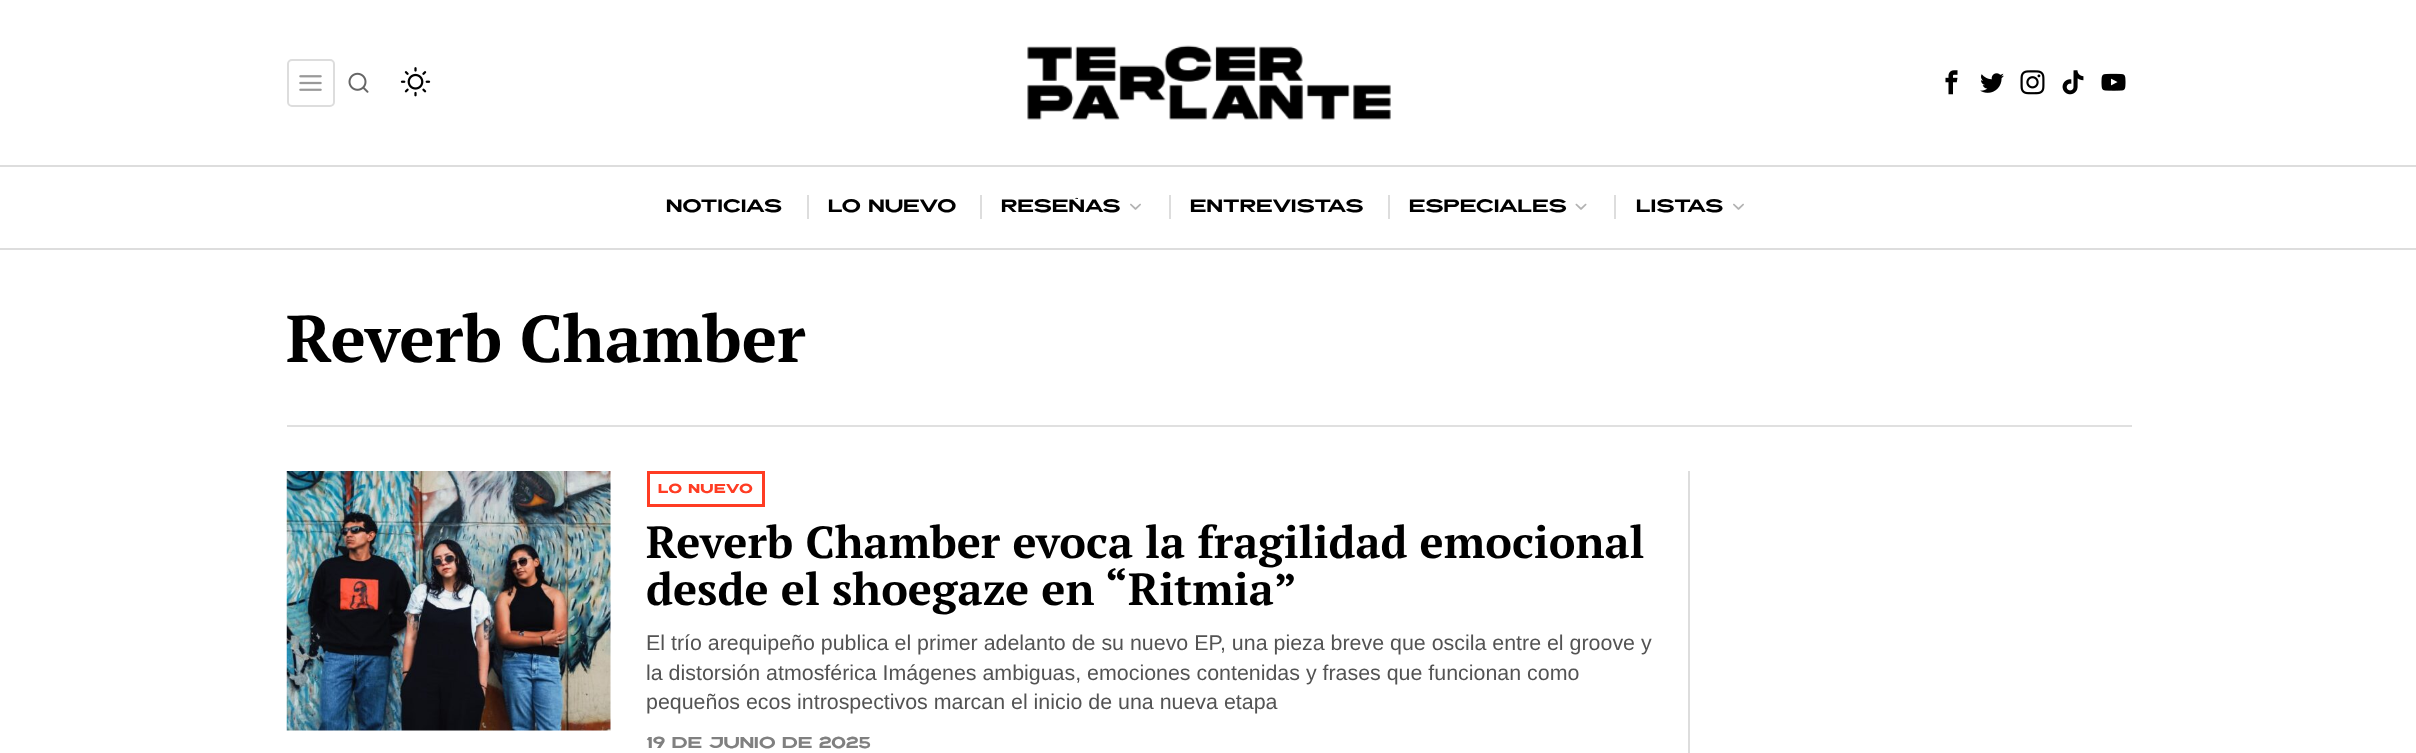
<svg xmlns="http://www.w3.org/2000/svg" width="2416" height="753">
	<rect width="100%" height="100%" fill="#FFFFFF" />
	<rect x="288" y="60" width="46" height="46" rx="4" fill="none" stroke="#DDDDDD" stroke-width="2" />
	<image x="299" y="75" width="23" height="16" href="assets/img1.png" />
	<image x="348" y="72" width="21" height="21" href="assets/img2.png" />
	<image x="400" y="67" width="31" height="30" href="assets/img3.png" />
	<image x="1027" y="45" width="364" height="75" href="assets/img4.png" />
	<image x="1945" y="70" width="13" height="25" href="assets/img5.png" />
	<image x="1980" y="73" width="24" height="20" href="assets/img6.png" />
	<image x="2020" y="70" width="25" height="25" href="assets/img7.png" />
	<image x="2062" y="70" width="22" height="25" href="assets/img8.png" />
	<image x="2101" y="73" width="25" height="18" href="assets/img9.png" />
	<rect x="0" y="165" width="2416" height="2" fill="#DDDDDD" />
	<rect x="0" y="248" width="2416" height="2" fill="#DDDDDD" />
	<text x="666" y="212" font-family="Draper" font-size="18" fill="#000000">Noticias</text>
	<rect x="807" y="195" width="2" height="24" fill="#DDDDDD" />
	<text x="828" y="212" font-family="Draper" font-size="18" fill="#000000">Lo nuevo</text>
	<rect x="980" y="195" width="2" height="24" fill="#DDDDDD" />
	<text x="1001" y="212" font-family="Draper" font-size="18" fill="#000000">Reseñas</text>
	<image x="1130" y="203" width="11" height="7" href="assets/img10.png" />
	<rect x="1169" y="195" width="2" height="24" fill="#DDDDDD" />
	<text x="1190" y="212" font-family="Draper" font-size="18" fill="#000000">Entrevistas</text>
	<rect x="1388" y="195" width="2" height="24" fill="#DDDDDD" />
	<text x="1409" y="212" font-family="Draper" font-size="18" fill="#000000">Especiales</text>
	<image x="1575" y="203" width="12" height="7" href="assets/img11.png" />
	<rect x="1614" y="195" width="2" height="24" fill="#DDDDDD" />
	<text x="1636" y="212" font-family="Draper" font-size="18" fill="#000000">Listas</text>
	<image x="1733" y="203" width="11" height="7" href="assets/img10.png" />
	<rect x="287" y="425" width="1845" height="2" fill="#E0E0E0" />
	<text x="286" y="362" font-family="PT Serif" font-size="66" font-weight="700" fill="#000000">Reverb Chamber</text>
	<image x="286" y="471" width="325" height="260" href="assets/img12.png" />
	<rect x="648.5" y="472.5" width="115" height="33" fill="none" stroke="#FF3C23" stroke-width="3" />
	<text x="658" y="493" font-family="Draper" font-size="12.5" font-weight="700" letter-spacing="0.75" fill="#FF3C23">LO NUEVO</text>
	<g font-family="PT Serif" font-size="45" font-weight="700" fill="#000000">
		<text x="646" y="558">Reverb Chamber evoca la fragilidad emocional</text>
		<text x="646" y="605">desde el shoegaze en “Ritmia”</text>
	</g>
	<g font-family="Liberation Sans" font-size="21.4" fill="#535353">
		<text x="646" y="650">El trío arequipeño publica el primer adelanto de su nuevo EP, una pieza breve que oscila entre el groove y</text>
		<text x="646" y="680">la distorsión atmosférica Imágenes ambiguas, emociones contenidas y frases que funcionan como</text>
		<text x="646" y="709">pequeños ecos introspectivos marcan el inicio de una nueva etapa</text>
	</g>
	<text x="646" y="748" font-family="Draper" font-size="15.75" fill="#808080">19 de junio de 2025</text>
	<rect x="1688" y="471" width="2" height="282" fill="#DDDDDD" />
</svg>
